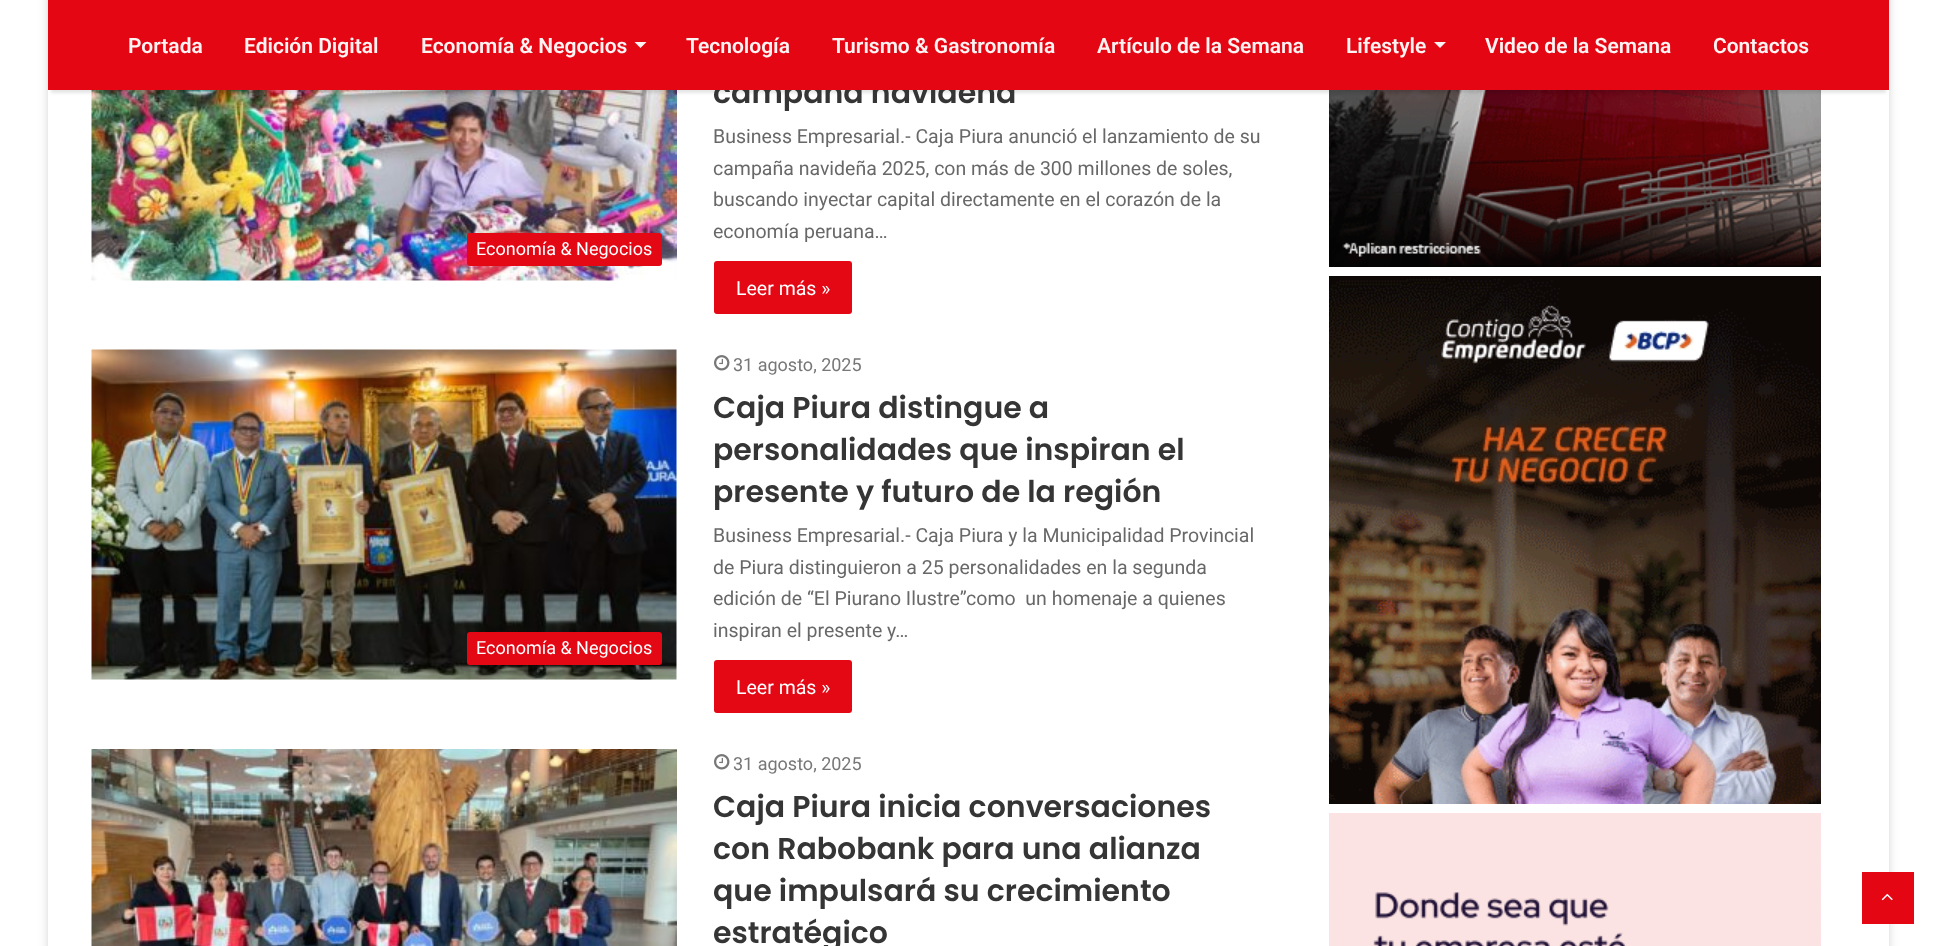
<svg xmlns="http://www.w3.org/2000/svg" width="1936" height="946">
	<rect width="100%" height="100%" fill="#FFFFFF" />
	<rect x="48" y="-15" width="1841" height="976" fill="#ABABAB" fill-opacity="0.5" filter="blur(5px)" />
	<rect x="48" y="90" width="1841" height="856" fill="#FFFFFF" />
	<image x="91" y="90" width="586" height="191" href="assets/img1.png" />
	<image x="1329" y="90" width="492" height="177" href="assets/img5.png" />
	<rect x="51" y="9" width="1835" height="84" fill="#000000" fill-opacity="0.1" filter="blur(1.5px)" />
	<text x="713" y="103" font-family="Poppins" font-size="30" font-weight="600" fill="#353535">campaña navideña</text>
	<rect x="48" y="0" width="1841" height="90" fill="#E40613" />
	<g font-family="Roboto" font-size="21" font-weight="600" fill="#FEF3F3">
		<text x="128" y="53">Portada</text>
		<text x="244" y="53">Edición Digital</text>
		<text x="421" y="53">Economía &amp; Negocios</text>
	</g>
	<path d="M634.5 42H646.5L640.5 48Z" fill="#FEF3F3" />
	<g font-family="Roboto" font-size="21" font-weight="600" fill="#FEF3F3">
		<text x="686" y="53">Tecnología</text>
		<text x="832" y="53">Turismo &amp; Gastronomía</text>
		<text x="1097" y="53">Artículo de la Semana</text>
		<text x="1346" y="53">Lifestyle</text>
	</g>
	<path d="M1434 42H1446L1440 48Z" fill="#FEF3F3" />
	<g font-family="Roboto" font-size="21" font-weight="600" fill="#FEF3F3">
		<text x="1485" y="53">Video de la Semana</text>
		<text x="1713" y="53">Contactos</text>
	</g>
	<rect x="467" y="233" width="195" height="33" rx="3" fill="#E40815" />
	<text x="476" y="255" font-family="Roboto" font-size="18" fill="#FFFFFF">Economía &amp; Negocios</text>
	<g font-family="Roboto" font-size="19.5" fill="#686868">
		<text x="713" y="143">Business Empresarial.- Caja Piura anunció el lanzamiento de su</text>
		<text x="713" y="175">campaña navideña 2025, con más de 300 millones de soles,</text>
		<text x="713" y="206">buscando inyectar capital directamente en el corazón de la</text>
		<text x="713" y="238">economía peruana…</text>
	</g>
	<rect x="714" y="261" width="138" height="53" rx="3" fill="#E40815" />
	<text x="736" y="295" font-family="Roboto" font-size="19.5" fill="#FFFFFF">Leer más »</text>
	<image x="91" y="349" width="586" height="331" href="assets/img2.png" />
	<rect x="467" y="632" width="195" height="33" rx="3" fill="#E40815" />
	<text x="476" y="654" font-family="Roboto" font-size="18" fill="#FFFFFF">Economía &amp; Negocios</text>
	<image x="714" y="355" width="16" height="16" href="assets/img3.png" />
	<text x="733" y="371" font-family="Roboto" font-size="18" fill="#777777">31 agosto, 2025</text>
	<g font-family="Poppins" font-size="30" font-weight="600" fill="#353535">
		<text x="713" y="418">Caja Piura distingue a</text>
		<text x="713" y="460">personalidades que inspiran el</text>
		<text x="713" y="502">presente y futuro de la región</text>
	</g>
	<g font-family="Roboto" font-size="19.5" fill="#686868">
		<text x="713" y="542">Business Empresarial.- Caja Piura y la Municipalidad Provincial</text>
		<text x="713" y="574">de Piura distinguieron a 25 personalidades en la segunda</text>
		<text x="713" y="605" xml:space="preserve">edición de “El Piurano Ilustre”como  un homenaje a quienes</text>
		<text x="713" y="637">inspiran el presente y…</text>
	</g>
	<rect x="714" y="660" width="138" height="53" rx="3" fill="#E40815" />
	<text x="736" y="694" font-family="Roboto" font-size="19.5" fill="#FFFFFF">Leer más »</text>
	<image x="91" y="749" width="586" height="197" href="assets/img4.png" />
	<image x="714" y="754" width="16" height="16" href="assets/img3.png" />
	<text x="733" y="770" font-family="Roboto" font-size="18" fill="#777777">31 agosto, 2025</text>
	<g font-family="Poppins" font-size="30" font-weight="600" fill="#353535">
		<text x="713" y="817">Caja Piura inicia conversaciones</text>
		<text x="713" y="859">con Rabobank para una alianza</text>
		<text x="713" y="901">que impulsará su crecimiento</text>
		<text x="713" y="943">estratégico</text>
	</g>
	<image x="1329" y="276" width="492" height="528" href="assets/img6.png" />
	<image x="1329" y="813" width="492" height="133" href="assets/img7.png" />
	<rect x="1862" y="872" width="52" height="52" fill="#E40613" />
	<image x="1881" y="893" width="12" height="8" href="assets/img8.png" />
</svg>
